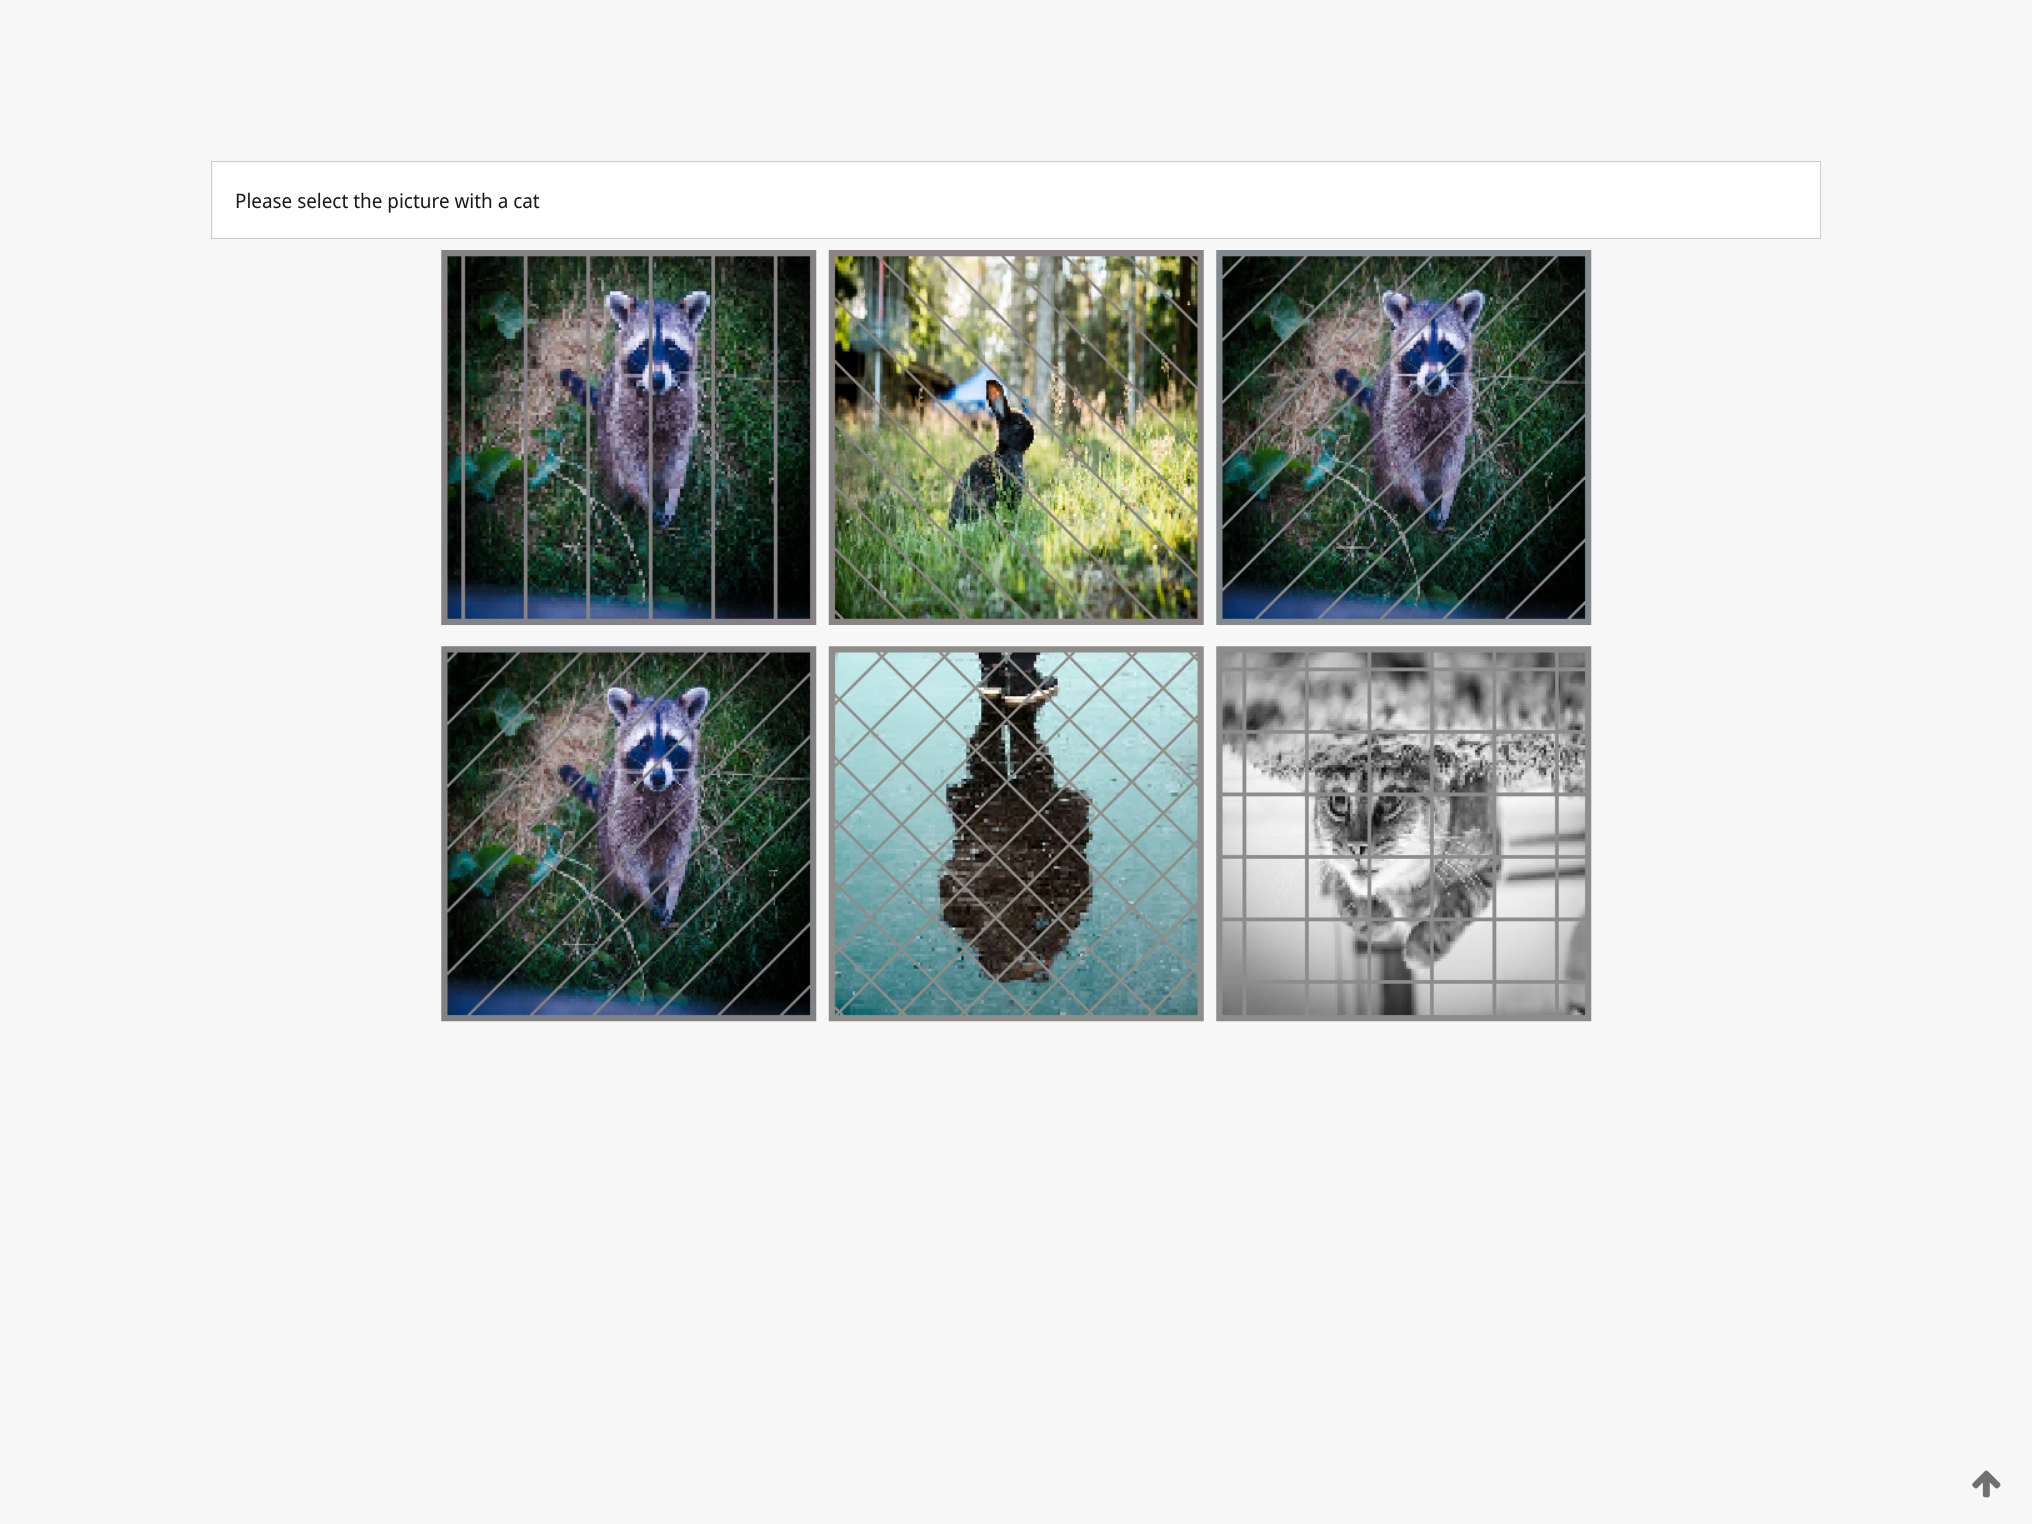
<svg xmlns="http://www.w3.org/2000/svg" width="2032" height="1524">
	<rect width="100%" height="100%" fill="#F7F7F7" />
	<rect x="213" y="163" width="1607" height="75" fill="#FFFFFF" />
	<rect x="211.5" y="161.5" width="1609" height="77" fill="none" stroke="#CCCCCC" />
	<text x="235" y="208" font-family="Noto Sans Display" font-size="20" fill="#1A1A1A">Please select the picture with a cat</text>
	<image x="441" y="250" width="376" height="375" href="assets/img1.png" />
	<image x="828" y="250" width="376" height="375" href="assets/img2.png" />
	<image x="1216" y="250" width="376" height="375" href="assets/img3.png" />
	<image x="441" y="646" width="376" height="376" href="assets/img4.png" />
	<image x="828" y="646" width="376" height="376" href="assets/img5.png" />
	<image x="1216" y="646" width="376" height="376" href="assets/img6.png" />
	<image x="1972" y="1470" width="29" height="28" href="assets/img7.png" />
</svg>
